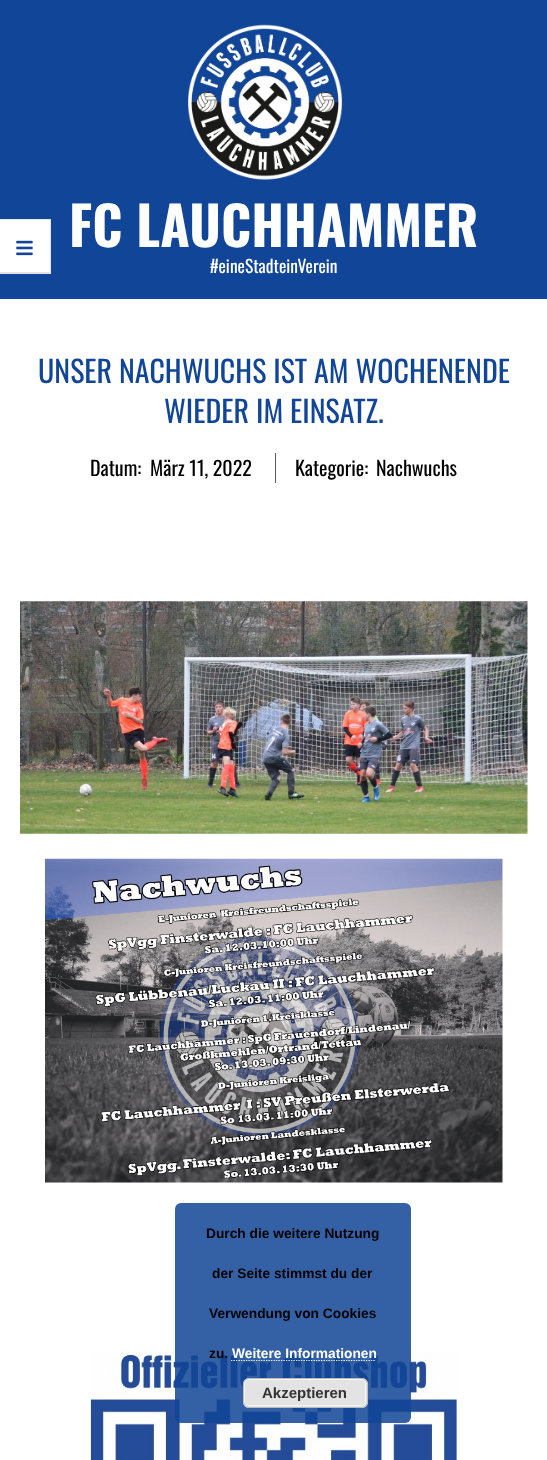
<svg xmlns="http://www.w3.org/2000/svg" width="547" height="1460">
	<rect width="100%" height="100%" fill="#FFFFFF" />
	<rect x="0" y="0" width="547" height="299" fill="#114597" />
	<rect x="0" y="219" width="51" height="55" fill="#FFFFFF" />
	<path d="M0 219H51L50 220H0Z" fill="#E6E6E6" />
	<path d="M51 219V274L50 272V220Z" fill="#000000" fill-opacity="0.1" />
	<path d="M51 274H0V272H50Z" fill="#000000" fill-opacity="0.1" />
	<image x="16" y="240" width="17" height="16" href="assets/img1.png" />
	<image x="188" y="24" width="155" height="156" href="assets/img2.png" />
	<text x="69" y="247" font-family="Oswald" font-size="53.75" font-weight="700" fill="#FFFFFF">FC LAUCHHAMMER</text>
	<text x="210" y="273" font-family="Oswald" font-size="17.5" fill="#FFFFFF">#eineStadteinVerein</text>
	<g font-family="Oswald" font-size="30" fill="#114597">
		<text x="38" y="383">UNSER NACHWUCHS IST AM WOCHENENDE</text>
		<text x="164" y="423">WIEDER IM EINSATZ.</text>
	</g>
	<g font-family="Oswald" font-size="20" fill="#000000">
		<text x="90" y="476">Datum:</text>
		<text x="150" y="476">März 11, 2022</text>
	</g>
	<rect x="275" y="453" width="1" height="30" fill="#5D5D5D" />
	<g font-family="Oswald" font-size="20" fill="#000000">
		<text x="295" y="476">Kategorie:</text>
		<text x="376" y="476">Nachwuchs</text>
	</g>
	<image x="20" y="601" width="508" height="233" href="assets/img3.png" />
	<image x="45" y="858" width="458" height="325" href="assets/img4.png" />
	<image x="89" y="1352" width="369" height="108" href="assets/img5.png" />
	<rect x="175" y="1203" width="236" height="220" rx="6" fill="#114597" fill-opacity="0.85" />
	<g font-family="Liberation Sans" font-size="13.75" font-weight="700" fill="#000000">
		<text x="206" y="1238">Durch die weitere Nutzung</text>
		<text x="212" y="1278">der Seite stimmst du der</text>
		<text x="209" y="1318">Verwendung von Cookies</text>
		<text x="209" y="1358">zu.</text>
	</g>
	<text x="232" y="1358" font-family="Liberation Sans" font-size="13.75" font-weight="700" fill="#FFFFFF">Weitere Informationen</text>
	<path d="M231 1360.5H376" fill="none" stroke="#FFFFFF" stroke-width="1.2" stroke-dasharray="1.25 1.25" />
	<rect x="243" y="1378" width="125" height="30" rx="6" fill="#E3E3E3" />
	<rect x="244.5" y="1379.5" width="121" height="26" rx="4.5" fill="none" stroke="#F6F6F6" />
	<rect x="243.5" y="1378.5" width="124" height="29" rx="5.5" fill="none" stroke="#BBBBBB" />
	<text x="262" y="1398" font-family="Liberation Sans" font-size="15" font-weight="700" fill="#333333">Akzeptieren</text>
</svg>
